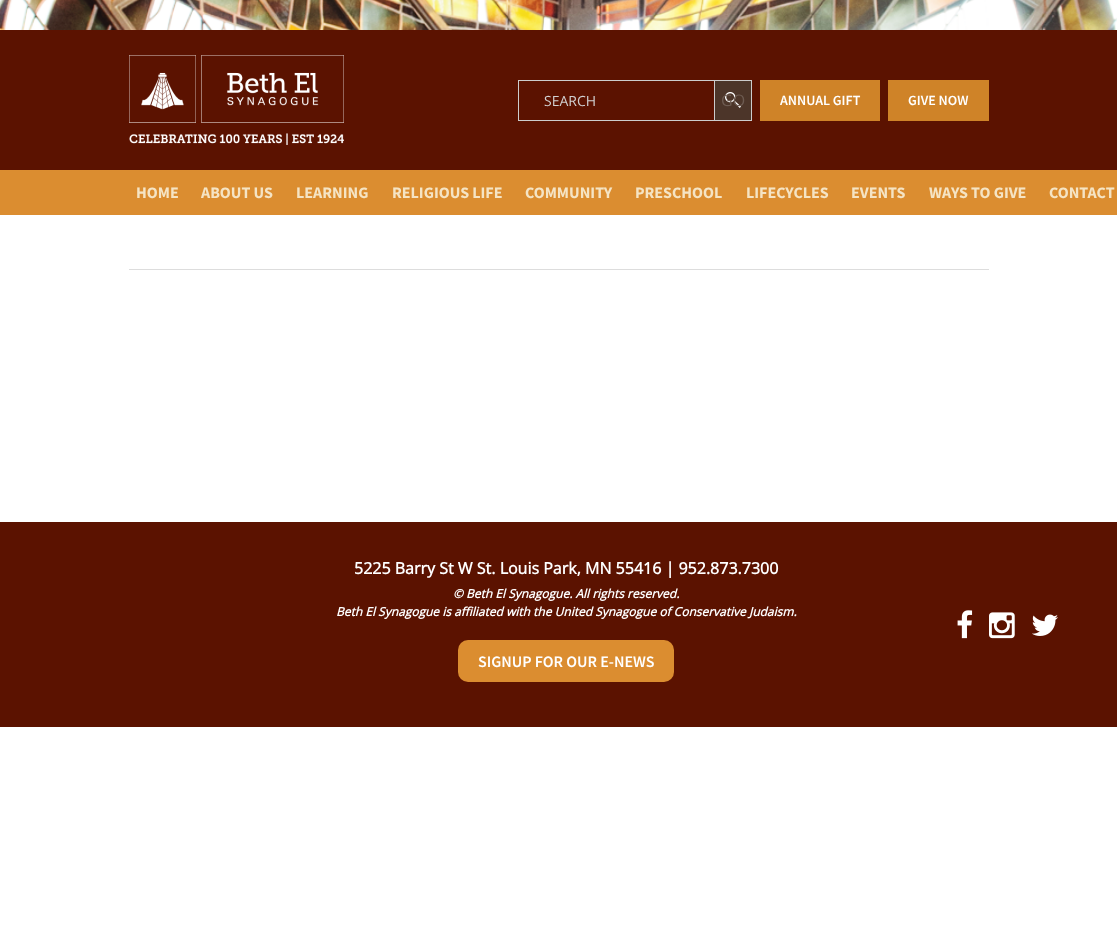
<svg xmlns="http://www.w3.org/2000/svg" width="1117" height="940">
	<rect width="100%" height="100%" fill="#FFFFFF" />
	<image x="0" y="0" width="1117" height="30" href="assets/img1.png" />
	<rect x="0" y="30" width="1117" height="140" fill="#5B1200" />
	<image x="129" y="55" width="215" height="90" href="assets/img2.png" />
	<rect x="518.5" y="80.5" width="196" height="40" fill="none" stroke="#CCCCCC" />
	<text x="544" y="106" font-family="Open Sans" font-size="14" fill="#D1D1D1">SEARCH</text>
	<rect x="715" y="81" width="36" height="39" fill="#4C3529" />
	<image x="725" y="92" width="16" height="16" href="assets/img3.png" />
	<rect x="715" y="80" width="37" height="1" fill="#CCCCCC" />
	<rect x="751" y="80" width="1" height="41" fill="#CCCCCC" />
	<rect x="715" y="120" width="37" height="1" fill="#CCCCCC" />
	<text x="721" y="106" font-family="Open Sans" font-size="16" fill="#6D5B51">GO</text>
	<rect x="760" y="80" width="120" height="41" fill="#CF8328" />
	<text x="780" y="105" font-family="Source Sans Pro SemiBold" font-size="14" font-weight="600" fill="#FFFFFF">ANNUAL GIFT</text>
	<rect x="888" y="80" width="101" height="41" fill="#CF8328" />
	<text x="908" y="105" font-family="Source Sans Pro SemiBold" font-size="14" font-weight="600" fill="#FFFFFF">GIVE NOW</text>
	<rect x="0" y="170" width="1117" height="45" fill="#DB8D30" />
	<g font-family="Source Sans Pro" font-size="16" font-weight="700" fill="#F5E4C4">
		<text x="136" y="198">HOME</text>
		<text x="201" y="198">ABOUT US</text>
		<text x="296" y="198">LEARNING</text>
		<text x="392" y="198">RELIGIOUS LIFE</text>
		<text x="525" y="198">COMMUNITY</text>
		<text x="635" y="198">PRESCHOOL</text>
		<text x="746" y="198">LIFECYCLES</text>
		<text x="851" y="198">EVENTS</text>
		<text x="929" y="198">WAYS TO GIVE</text>
		<text x="1049" y="198">CONTACT</text>
	</g>
	<rect x="129" y="269" width="860" height="1" fill="#DDDDDD" />
	<rect x="0" y="522" width="1117" height="205" fill="#5B1200" />
	<text x="354" y="574" font-family="Open Sans" font-size="16" font-weight="700" fill="#FFFFFF">5225 Barry St W St. Louis Park, MN 55416 | 952.873.7300</text>
	<g font-family="Open Sans" font-size="12" font-weight="700" font-style="italic" fill="#FFFFFF">
		<text x="453" y="598">© Beth El Synagogue. All rights reserved.</text>
		<text x="336" y="616">Beth El Synagogue is affiliated with the United Synagogue of Conservative Judaism.</text>
	</g>
	<rect x="458" y="640" width="216" height="42" rx="10" fill="#DB8D30" />
	<text x="478" y="667" font-family="Source Sans Pro SemiBold" font-size="16" font-weight="600" fill="#FFFFFF">SIGNUP FOR OUR E-NEWS</text>
	<image x="957" y="610" width="16" height="29" href="assets/img4.png" />
	<image x="989" y="612" width="26" height="27" href="assets/img5.png" />
	<image x="1032" y="614" width="26" height="22" href="assets/img6.png" />
</svg>
